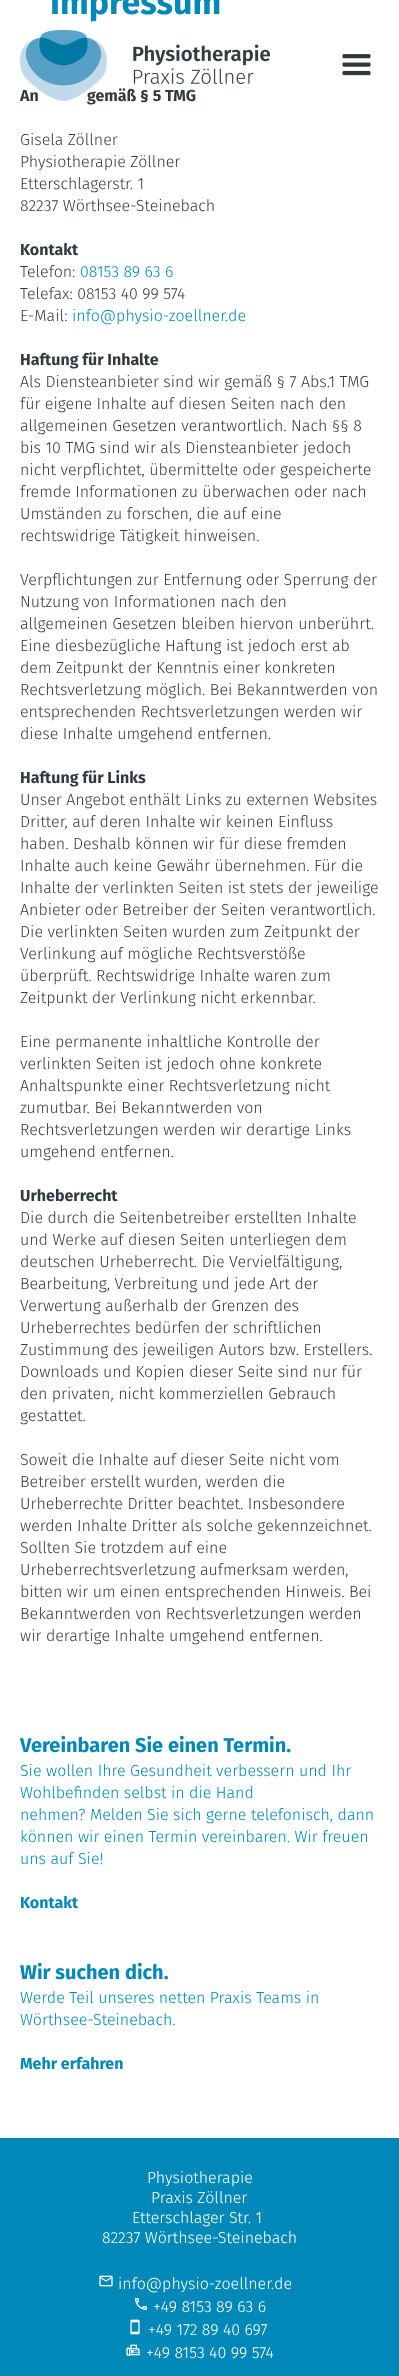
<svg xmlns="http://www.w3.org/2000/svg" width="399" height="2376">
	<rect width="100%" height="100%" fill="#FFFFFF" />
	<text x="50" y="14" font-family="Fira Sans" font-size="34" font-weight="700" fill="#0088B9">Impressum</text>
	<g font-family="Fira Sans" font-size="16" font-weight="700" fill="#333A3E">
		<text x="20" y="101">An</text>
		<text x="87" y="101">gemäß § 5 TMG</text>
	</g>
	<g font-family="Fira Sans" font-size="16" font-weight="300" fill="#333A3E">
		<text x="20" y="145">Gisela Zöllner</text>
		<text x="20" y="167">Physiotherapie Zöllner</text>
		<text x="20" y="189">Etterschlagerstr. 1</text>
		<text x="20" y="211">82237 Wörthsee-Steinebach</text>
	</g>
	<text x="20" y="255" font-family="Fira Sans" font-size="16" font-weight="700" fill="#333A3E">Kontakt</text>
	<text x="20" y="277" font-family="Fira Sans" font-size="16" font-weight="300" fill="#333A3E">Telefon:</text>
	<text x="80" y="277" font-family="Fira Sans" font-size="16" font-weight="300" fill="#0088B9">08153 89 63 6</text>
	<g font-family="Fira Sans" font-size="16" font-weight="300" fill="#333A3E">
		<text x="20" y="299">Telefax: 08153 40 99 574</text>
		<text x="20" y="321">E-Mail:</text>
	</g>
	<text x="72" y="321" font-family="Fira Sans" font-size="16" font-weight="300" fill="#0088B9">info@physio-zoellner.de</text>
	<text x="20" y="365" font-family="Fira Sans" font-size="16" font-weight="700" fill="#333A3E">Haftung für Inhalte</text>
	<g font-family="Fira Sans" font-size="16" font-weight="300" fill="#333A3E">
		<text x="20" y="387">Als Diensteanbieter sind wir gemäß § 7 Abs.1 TMG</text>
		<text x="20" y="409">für eigene Inhalte auf diesen Seiten nach den</text>
		<text x="20" y="431">allgemeinen Gesetzen verantwortlich. Nach §§ 8</text>
		<text x="20" y="453">bis 10 TMG sind wir als Diensteanbieter jedoch</text>
		<text x="20" y="475">nicht verpflichtet, übermittelte oder gespeicherte</text>
		<text x="20" y="497">fremde Informationen zu überwachen oder nach</text>
		<text x="20" y="519">Umständen zu forschen, die auf eine</text>
		<text x="20" y="541">rechtswidrige Tätigkeit hinweisen.</text>
		<text x="20" y="585">Verpflichtungen zur Entfernung oder Sperrung der</text>
		<text x="20" y="607">Nutzung von Informationen nach den</text>
		<text x="20" y="629">allgemeinen Gesetzen bleiben hiervon unberührt.</text>
		<text x="20" y="651">Eine diesbezügliche Haftung ist jedoch erst ab</text>
		<text x="20" y="673">dem Zeitpunkt der Kenntnis einer konkreten</text>
		<text x="20" y="695">Rechtsverletzung möglich. Bei Bekanntwerden von</text>
		<text x="20" y="717">entsprechenden Rechtsverletzungen werden wir</text>
		<text x="20" y="739">diese Inhalte umgehend entfernen.</text>
	</g>
	<text x="20" y="783" font-family="Fira Sans" font-size="16" font-weight="700" fill="#333A3E">Haftung für Links</text>
	<g font-family="Fira Sans" font-size="16" font-weight="300" fill="#333A3E">
		<text x="20" y="805">Unser Angebot enthält Links zu externen Websites</text>
		<text x="20" y="827">Dritter, auf deren Inhalte wir keinen Einfluss</text>
		<text x="20" y="849">haben. Deshalb können wir für diese fremden</text>
		<text x="20" y="871">Inhalte auch keine Gewähr übernehmen. Für die</text>
		<text x="20" y="893">Inhalte der verlinkten Seiten ist stets der jeweilige</text>
		<text x="20" y="915">Anbieter oder Betreiber der Seiten verantwortlich.</text>
		<text x="20" y="937">Die verlinkten Seiten wurden zum Zeitpunkt der</text>
		<text x="20" y="959">Verlinkung auf mögliche Rechtsverstöße</text>
		<text x="20" y="981">überprüft. Rechtswidrige Inhalte waren zum</text>
		<text x="20" y="1003">Zeitpunkt der Verlinkung nicht erkennbar.</text>
		<text x="20" y="1047">Eine permanente inhaltliche Kontrolle der</text>
		<text x="20" y="1069">verlinkten Seiten ist jedoch ohne konkrete</text>
		<text x="20" y="1091">Anhaltspunkte einer Rechtsverletzung nicht</text>
		<text x="20" y="1113">zumutbar. Bei Bekanntwerden von</text>
		<text x="20" y="1135">Rechtsverletzungen werden wir derartige Links</text>
		<text x="20" y="1157">umgehend entfernen.</text>
	</g>
	<text x="20" y="1201" font-family="Fira Sans" font-size="16" font-weight="700" fill="#333A3E">Urheberrecht</text>
	<g font-family="Fira Sans" font-size="16" font-weight="300" fill="#333A3E">
		<text x="20" y="1223">Die durch die Seitenbetreiber erstellten Inhalte</text>
		<text x="20" y="1245">und Werke auf diesen Seiten unterliegen dem</text>
		<text x="20" y="1267">deutschen Urheberrecht. Die Vervielfältigung,</text>
		<text x="20" y="1289">Bearbeitung, Verbreitung und jede Art der</text>
		<text x="20" y="1311">Verwertung außerhalb der Grenzen des</text>
		<text x="20" y="1333">Urheberrechtes bedürfen der schriftlichen</text>
		<text x="20" y="1355">Zustimmung des jeweiligen Autors bzw. Erstellers.</text>
		<text x="20" y="1377">Downloads und Kopien dieser Seite sind nur für</text>
		<text x="20" y="1399">den privaten, nicht kommerziellen Gebrauch</text>
		<text x="20" y="1421">gestattet.</text>
		<text x="20" y="1465">Soweit die Inhalte auf dieser Seite nicht vom</text>
		<text x="20" y="1487">Betreiber erstellt wurden, werden die</text>
		<text x="20" y="1509">Urheberrechte Dritter beachtet. Insbesondere</text>
		<text x="20" y="1531">werden Inhalte Dritter als solche gekennzeichnet.</text>
		<text x="20" y="1553">Sollten Sie trotzdem auf eine</text>
		<text x="20" y="1575">Urheberrechtsverletzung aufmerksam werden,</text>
		<text x="20" y="1597">bitten wir um einen entsprechenden Hinweis. Bei</text>
		<text x="20" y="1619">Bekanntwerden von Rechtsverletzungen werden</text>
		<text x="20" y="1641">wir derartige Inhalte umgehend entfernen.</text>
	</g>
	<image x="20" y="30" width="250" height="71" href="assets/img1.png" />
	<image x="342" y="54" width="29" height="22" href="assets/img2.png" />
	<text x="20" y="1752" font-family="Fira Sans" font-size="20" font-weight="700" fill="#0088B9">Vereinbaren Sie einen Termin.</text>
	<g font-family="Fira Sans" font-size="16" font-weight="300" fill="#0088B9">
		<text x="20" y="1776">Sie wollen Ihre Gesundheit verbessern und Ihr</text>
		<text x="20" y="1798">Wohlbefinden selbst in die Hand</text>
		<text x="20" y="1820">nehmen? Melden Sie sich gerne telefonisch, dann</text>
		<text x="20" y="1842">können wir einen Termin vereinbaren. Wir freuen</text>
		<text x="20" y="1864">uns auf Sie!</text>
	</g>
	<text x="20" y="1908" font-family="Fira Sans" font-size="16" font-weight="700" fill="#0088B9">Kontakt</text>
	<text x="20" y="1979" font-family="Fira Sans" font-size="20" font-weight="700" fill="#0088B9">Wir suchen dich.</text>
	<g font-family="Fira Sans" font-size="16" font-weight="300" fill="#0088B9">
		<text x="20" y="2003">Werde Teil unseres netten Praxis Teams in</text>
		<text x="20" y="2025">Wörthsee-Steinebach.</text>
	</g>
	<text x="20" y="2069" font-family="Fira Sans" font-size="16" font-weight="700" fill="#0088B9">Mehr erfahren</text>
	<rect x="0" y="2138" width="399" height="238" fill="#0088B9" />
	<g font-family="Fira Sans" font-size="16" font-weight="300" fill="#FFFFFF">
		<text x="147" y="2183">Physiotherapie</text>
		<text x="151" y="2203">Praxis Zöllner</text>
		<text x="132" y="2223">Etterschlager Str. 1</text>
		<text x="102" y="2243">82237 Wörthsee-Steinebach</text>
	</g>
	<image x="99" y="2275" width="14" height="12" href="assets/img3.png" />
	<text x="118" y="2289" font-family="Fira Sans" font-size="16" font-weight="300" fill="#FFFFFF">info@physio-zoellner.de</text>
	<image x="135" y="2298" width="12" height="12" href="assets/img4.png" />
	<text x="153" y="2312" font-family="Fira Sans" font-size="16" font-weight="300" fill="#FFFFFF">+49 8153 89 63 6</text>
	<image x="130" y="2319" width="10" height="16" href="assets/img5.png" />
	<text x="148" y="2335" font-family="Fira Sans" font-size="16" font-weight="300" fill="#FFFFFF">+49 172 89 40 697</text>
	<image x="126" y="2344" width="14" height="12" href="assets/img6.png" />
	<text x="146" y="2358" font-family="Fira Sans" font-size="16" font-weight="300" fill="#FFFFFF">+49 8153 40 99 574</text>
</svg>
